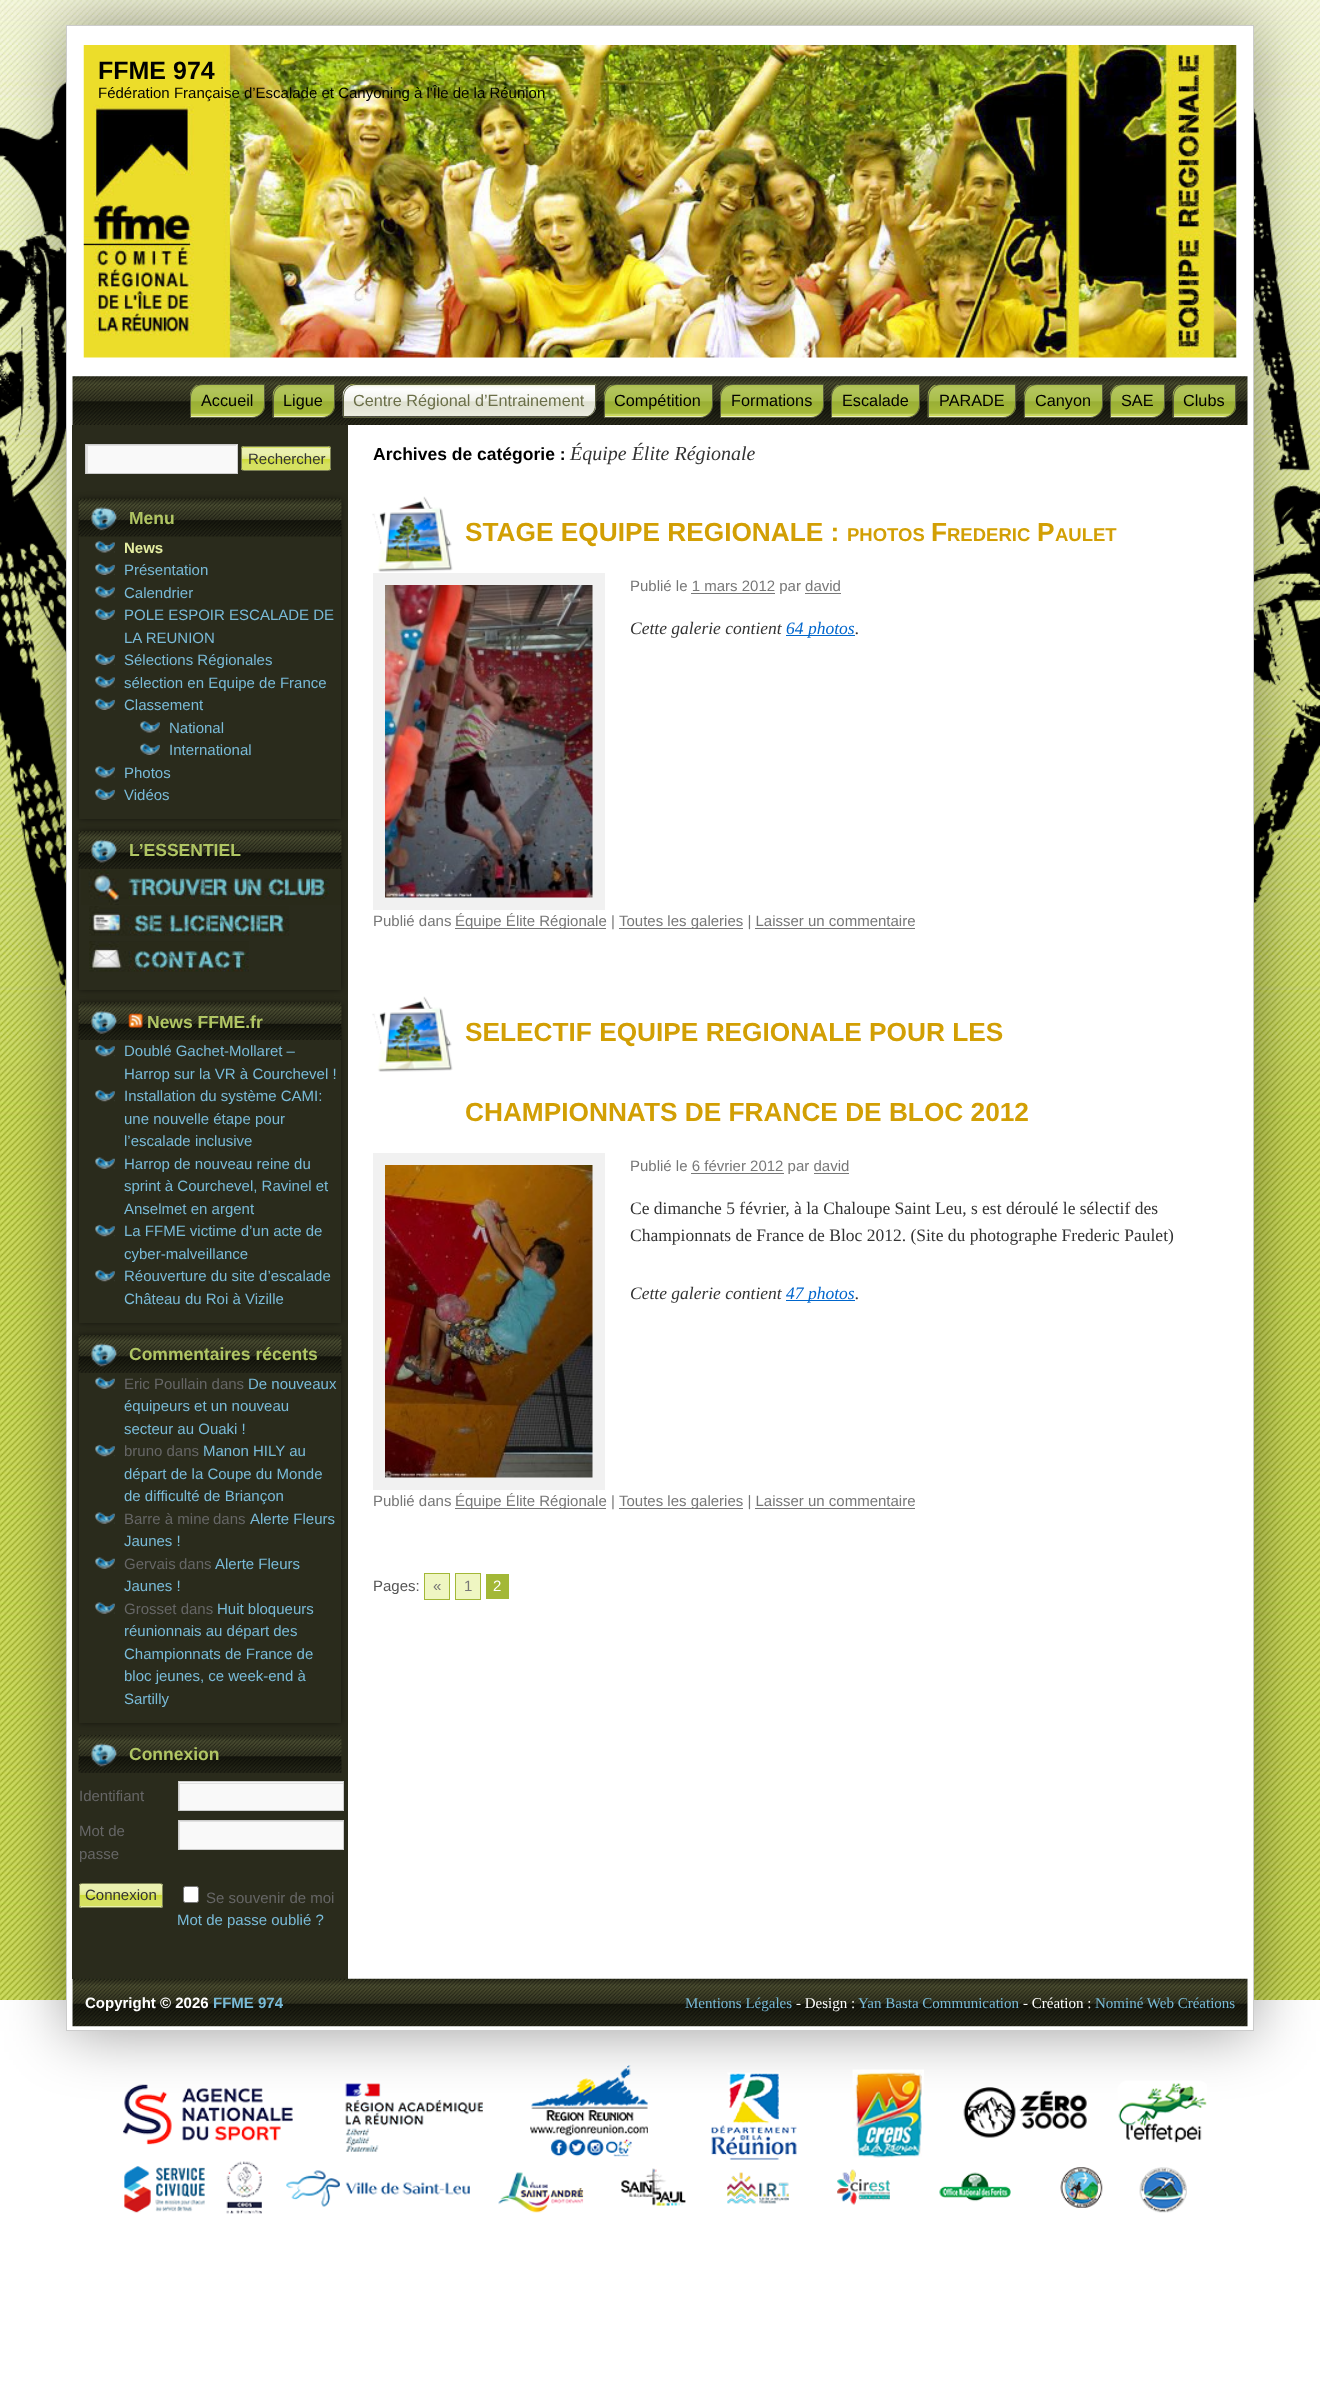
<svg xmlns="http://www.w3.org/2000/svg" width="1320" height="2387">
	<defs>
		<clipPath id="clip1"><rect x="86" y="445" width="150" height="28" /></clipPath>
		<clipPath id="clip2"><rect x="241" y="446" width="90" height="25" rx="2.5" /></clipPath>
		<linearGradient id="g1" gradientUnits="userSpaceOnUse" x1="286" y1="448" x2="286" y2="425"><stop offset="0.25" stop-color="#D6E161" /><stop offset="0.5" stop-color="#CDDB34" /><stop offset="0.5" stop-color="#E0E887" /><stop offset="0.75" stop-color="#EAF0AF" /></linearGradient>
		<linearGradient id="g2" gradientUnits="userSpaceOnUse" x1="286" y1="470" x2="286" y2="448"><stop offset="0.25" stop-color="#D6E161" /><stop offset="0.5" stop-color="#CDDB34" /><stop offset="0.5" stop-color="#E0E887" /><stop offset="0.75" stop-color="#EAF0AF" /></linearGradient>
		<clipPath id="clip3"><rect x="179" y="1783" width="164" height="27" /></clipPath>
		<clipPath id="clip4"><rect x="179" y="1821" width="164" height="28" /></clipPath>
		<linearGradient id="g3" gradientUnits="userSpaceOnUse" x1="121" y1="1906" x2="121" y2="1884"><stop offset="0.25" stop-color="#D6E161" /><stop offset="0.5" stop-color="#CDDB34" /><stop offset="0.5" stop-color="#E0E887" /><stop offset="0.75" stop-color="#EAF0AF" /></linearGradient>
		<clipPath id="clip5"><rect x="79" y="1883" width="84" height="25" rx="2.5" /></clipPath>
		<linearGradient id="g4" gradientUnits="userSpaceOnUse" x1="121" y1="1929" x2="121" y2="1906"><stop offset="0.25" stop-color="#D6E161" /><stop offset="0.5" stop-color="#CDDB34" /><stop offset="0.5" stop-color="#E0E887" /><stop offset="0.75" stop-color="#EAF0AF" /></linearGradient>
	</defs>
	<rect width="100%" height="100%" fill="#FFFFFF" />
	<image x="0" y="0" width="1320" height="2000" href="assets/img1.png" />
	<image x="0" y="82" width="1320" height="916" href="assets/img2.png" />
	<rect x="66" y="25" width="1188" height="2006" fill="#000000" fill-opacity="0.4" filter="blur(31px)" />
	<rect x="66.5" y="25.5" width="1187" height="2005" fill="#FFFFFF" stroke="#CCCCCC" />
	<image x="83" y="45" width="1154" height="313" href="assets/img3.png" />
	<text x="98" y="79" font-family="Liberation Sans" font-size="25" font-weight="700" fill="#000000">FFME 974</text>
	<text x="98" y="98" font-family="Liberation Sans" font-size="15" fill="#000000">Fédération Française d’Escalade et Canyoning à l'Île de la Réunion</text>
	<image x="72" y="376" width="1176" height="49" href="assets/img4.png" />
	<image x="190" y="385" width="75" height="33" href="assets/img5.png" />
	<path d="M203 384.5H264.5V405C264.5 412 259 417.5 252 417.5H190.5V397C190.5 390 196 384.5 203 384.5Z" fill="none" stroke="#595D3C" />
	<text x="201" y="406" font-family="Liberation Sans" font-size="16.25" fill="#000000">Accueil</text>
	<image x="272" y="385" width="63" height="33" href="assets/img6.png" />
	<path d="M286 384.5H334.5V405C334.5 412 329 417.5 322 417.5H273.5V397C273.5 390 279 384.5 286 384.5Z" fill="none" stroke="#595D3C" />
	<text x="283" y="406" font-family="Liberation Sans" font-size="16.25" fill="#000000">Ligue</text>
	<image x="342" y="383" width="255" height="34" href="assets/img7.png" />
	<path d="M356 384.5H595.5V405C595.5 412 590 417.5 583 417.5H343.5V397C343.5 390 349 384.5 356 384.5Z" fill="none" stroke="#595D3C" />
	<text x="353" y="406" font-family="Liberation Sans" font-size="16.25" fill="#6B6F49">Centre Régional d’Entrainement</text>
	<image x="603" y="385" width="110" height="33" href="assets/img8.png" />
	<path d="M617 384.5H712.5V405C712.5 412 707 417.5 700 417.5H604.5V397C604.5 390 610 384.5 617 384.5Z" fill="none" stroke="#595D3C" />
	<text x="614" y="406" font-family="Liberation Sans" font-size="16.25" fill="#000000">Compétition</text>
	<image x="720" y="385" width="104" height="33" href="assets/img9.png" />
	<path d="M733 384.5H823.5V405C823.5 412 818 417.5 811 417.5H720.5V397C720.5 390 726 384.5 733 384.5Z" fill="none" stroke="#595D3C" />
	<text x="731" y="406" font-family="Liberation Sans" font-size="16.25" fill="#000000">Formations</text>
	<image x="831" y="385" width="89" height="33" href="assets/img10.png" />
	<path d="M844 384.5H919.5V405C919.5 412 914 417.5 907 417.5H831.5V397C831.5 390 837 384.5 844 384.5Z" fill="none" stroke="#595D3C" />
	<text x="842" y="406" font-family="Liberation Sans" font-size="16.25" fill="#000000">Escalade</text>
	<image x="927" y="385" width="90" height="33" href="assets/img11.png" />
	<path d="M941 384.5H1015.5V405C1015.5 412 1010 417.5 1003 417.5H928.5V397C928.5 390 934 384.5 941 384.5Z" fill="none" stroke="#595D3C" />
	<text x="939" y="406" font-family="Liberation Sans" font-size="16.25" fill="#000000">PARADE</text>
	<image x="1023" y="385" width="80" height="33" href="assets/img12.png" />
	<path d="M1037 384.5H1102.5V405C1102.5 412 1097 417.5 1090 417.5H1024.5V397C1024.5 390 1030 384.5 1037 384.5Z" fill="none" stroke="#595D3C" />
	<text x="1035" y="406" font-family="Liberation Sans" font-size="16.25" fill="#000000">Canyon</text>
	<image x="1110" y="385" width="55" height="33" href="assets/img13.png" />
	<path d="M1123 384.5H1164.5V405C1164.5 412 1159 417.5 1152 417.5H1110.5V397C1110.5 390 1116 384.5 1123 384.5Z" fill="none" stroke="#595D3C" />
	<text x="1121" y="406" font-family="Liberation Sans" font-size="16.25" fill="#000000">SAE</text>
	<image x="1172" y="385" width="65" height="33" href="assets/img14.png" />
	<path d="M1186 384.5H1235.5V405C1235.5 412 1230 417.5 1223 417.5H1173.5V397C1173.5 390 1179 384.5 1186 384.5Z" fill="none" stroke="#595D3C" />
	<text x="1183" y="406" font-family="Liberation Sans" font-size="16.25" fill="#000000">Clubs</text>
	<rect x="72" y="425" width="276" height="1554" fill="#2A2B1C" />
	<rect x="88" y="445" width="149" height="28" fill="#F9F9F9" />
	<g clip-path="url(#clip1)">
		<path d="M-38 321H360V596H-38ZM88 446H238V474H88Z" fill="#E0E0E0" fill-rule="evenodd" />
	</g>
	<rect x="85.5" y="444.5" width="152" height="29" fill="none" stroke="#CCCCCC" />
	<g clip-path="url(#clip2)">
		<rect x="241" y="446" width="90" height="2" fill="url(#g1)" />
	</g>
	<rect x="241" y="448" width="90" height="22" fill="url(#g2)" />
	<rect x="241.5" y="446.5" width="89" height="24" rx="2" fill="none" stroke="#7D8255" />
	<text x="248" y="464" font-family="Liberation Sans" font-size="15" fill="#333333">Rechercher</text>
	<rect x="79" y="499" width="262" height="320" fill="#000000" fill-opacity="0.5" filter="blur(3px)" />
	<rect x="79" y="536" width="262" height="283" fill="#2A2B1C" />
	<image x="78" y="498" width="264" height="39" href="assets/img15.png" />
	<text x="129" y="524" font-family="Liberation Sans" font-size="17.5" font-weight="700" fill="#B0C563">Menu</text>
	<image x="95" y="541" width="20" height="12" href="assets/img16.png" />
	<text x="124" y="553" font-family="Liberation Sans" font-size="15" font-weight="700" fill="#E4EDA1">News</text>
	<image x="95" y="563" width="20" height="12" href="assets/img17.png" />
	<text x="124" y="575" font-family="Liberation Sans" font-size="15" fill="#79BBD8">Présentation</text>
	<image x="95" y="586" width="20" height="12" href="assets/img18.png" />
	<text x="124" y="598" font-family="Liberation Sans" font-size="15" fill="#79BBD8">Calendrier</text>
	<image x="95" y="608" width="20" height="12" href="assets/img17.png" />
	<g font-family="Liberation Sans" font-size="15" fill="#79BBD8">
		<text x="124" y="620">POLE ESPOIR ESCALADE DE</text>
		<text x="124" y="643">LA REUNION</text>
	</g>
	<image x="95" y="653" width="20" height="12" href="assets/img17.png" />
	<text x="124" y="665" font-family="Liberation Sans" font-size="15" fill="#79BBD8">Sélections Régionales</text>
	<image x="95" y="676" width="20" height="12" href="assets/img16.png" />
	<text x="124" y="688" font-family="Liberation Sans" font-size="15" fill="#79BBD8">sélection en Equipe de France</text>
	<image x="95" y="698" width="20" height="12" href="assets/img17.png" />
	<text x="124" y="710" font-family="Liberation Sans" font-size="15" fill="#79BBD8">Classement</text>
	<image x="140" y="721" width="20" height="12" href="assets/img16.png" />
	<text x="169" y="733" font-family="Liberation Sans" font-size="15" fill="#79BBD8">National</text>
	<image x="140" y="743" width="20" height="12" href="assets/img17.png" />
	<text x="169" y="755" font-family="Liberation Sans" font-size="15" fill="#79BBD8">International</text>
	<image x="95" y="766" width="20" height="12" href="assets/img16.png" />
	<text x="124" y="778" font-family="Liberation Sans" font-size="15" fill="#79BBD8">Photos</text>
	<image x="95" y="788" width="20" height="12" href="assets/img17.png" />
	<text x="124" y="800" font-family="Liberation Sans" font-size="15" fill="#79BBD8">Vidéos</text>
	<rect x="79" y="831" width="262" height="159" fill="#000000" fill-opacity="0.5" filter="blur(3px)" />
	<rect x="79" y="831" width="262" height="159" fill="#2A2B1C" />
	<image x="78" y="831" width="264" height="38" href="assets/img19.png" />
	<text x="129" y="856" font-family="Liberation Sans" font-size="17.5" font-weight="700" fill="#B0C563">L’ESSENTIEL</text>
	<image x="81" y="868" width="260" height="37" href="assets/img20.png" />
	<image x="89" y="906" width="200" height="30" href="assets/img21.png" />
	<image x="89" y="941" width="160" height="31" href="assets/img22.png" />
	<rect x="79" y="1003" width="262" height="320" fill="#000000" fill-opacity="0.5" filter="blur(3px)" />
	<rect x="79" y="1040" width="262" height="283" fill="#2A2B1C" />
	<image x="78" y="1002" width="264" height="38" href="assets/img23.png" />
	<image x="128" y="1013" width="15" height="15" href="assets/img24.png" />
	<text x="147" y="1028" font-family="Liberation Sans" font-size="17.5" font-weight="700" fill="#B0C563">News FFME.fr</text>
	<image x="95" y="1044" width="20" height="13" href="assets/img25.png" />
	<g font-family="Liberation Sans" font-size="15" fill="#79BBD8">
		<text x="124" y="1056">Doublé Gachet-Mollaret –</text>
		<text x="124" y="1079">Harrop sur la VR à Courchevel !</text>
	</g>
	<image x="95" y="1089" width="20" height="13" href="assets/img25.png" />
	<g font-family="Liberation Sans" font-size="15" fill="#79BBD8">
		<text x="124" y="1101">Installation du système CAMI:</text>
		<text x="124" y="1124">une nouvelle étape pour</text>
		<text x="124" y="1146">l’escalade inclusive</text>
	</g>
	<image x="95" y="1157" width="20" height="12" href="assets/img26.png" />
	<g font-family="Liberation Sans" font-size="15" fill="#79BBD8">
		<text x="124" y="1169">Harrop de nouveau reine du</text>
		<text x="124" y="1191">sprint à Courchevel, Ravinel et</text>
		<text x="124" y="1214">Anselmet en argent</text>
	</g>
	<image x="95" y="1224" width="20" height="13" href="assets/img25.png" />
	<g font-family="Liberation Sans" font-size="15" fill="#79BBD8">
		<text x="124" y="1236">La FFME victime d’un acte de</text>
		<text x="124" y="1259">cyber-malveillance</text>
	</g>
	<image x="95" y="1269" width="20" height="13" href="assets/img25.png" />
	<g font-family="Liberation Sans" font-size="15" fill="#79BBD8">
		<text x="124" y="1281">Réouverture du site d’escalade</text>
		<text x="124" y="1304">Château du Roi à Vizille</text>
	</g>
	<rect x="79" y="1335" width="262" height="388" fill="#000000" fill-opacity="0.5" filter="blur(3px)" />
	<rect x="79" y="1372" width="262" height="351" fill="#2A2B1C" />
	<image x="78" y="1335" width="264" height="38" href="assets/img27.png" />
	<text x="129" y="1360" font-family="Liberation Sans" font-size="17.5" font-weight="700" fill="#B0C563">Commentaires récents</text>
	<image x="95" y="1377" width="20" height="12" href="assets/img26.png" />
	<text x="124" y="1389" font-family="Liberation Sans" font-size="15" fill="#666666">Eric Poullain dans</text>
	<g font-family="Liberation Sans" font-size="15" fill="#79BBD8">
		<text x="248" y="1389">De nouveaux</text>
		<text x="124" y="1411">équipeurs et un nouveau</text>
		<text x="124" y="1434">secteur au Ouaki !</text>
	</g>
	<image x="95" y="1444" width="20" height="13" href="assets/img25.png" />
	<text x="124" y="1456" font-family="Liberation Sans" font-size="15" fill="#666666">bruno dans</text>
	<g font-family="Liberation Sans" font-size="15" fill="#79BBD8">
		<text x="203" y="1456">Manon HILY au</text>
		<text x="124" y="1479">départ de la Coupe du Monde</text>
		<text x="124" y="1501">de difficulté de Briançon</text>
	</g>
	<image x="95" y="1512" width="20" height="12" href="assets/img26.png" />
	<g font-family="Liberation Sans" font-size="15" fill="#666666">
		<text x="124" y="1524">Barre à mine</text>
		<text x="213" y="1524">dans</text>
	</g>
	<g font-family="Liberation Sans" font-size="15" fill="#79BBD8">
		<text x="250" y="1524">Alerte Fleurs</text>
		<text x="124" y="1546">Jaunes !</text>
	</g>
	<image x="95" y="1557" width="20" height="12" href="assets/img28.png" />
	<g font-family="Liberation Sans" font-size="15" fill="#666666">
		<text x="124" y="1569">Gervais</text>
		<text x="179" y="1569">dans</text>
	</g>
	<g font-family="Liberation Sans" font-size="15" fill="#79BBD8">
		<text x="215" y="1569">Alerte Fleurs</text>
		<text x="124" y="1591">Jaunes !</text>
	</g>
	<image x="95" y="1602" width="20" height="12" href="assets/img26.png" />
	<text x="124" y="1614" font-family="Liberation Sans" font-size="15" fill="#666666">Grosset dans</text>
	<g font-family="Liberation Sans" font-size="15" fill="#79BBD8">
		<text x="217" y="1614">Huit bloqueurs</text>
		<text x="124" y="1636">réunionnais au départ des</text>
		<text x="124" y="1659">Championnats de France de</text>
		<text x="124" y="1681">bloc jeunes, ce week-end à</text>
		<text x="124" y="1704">Sartilly</text>
	</g>
	<image x="78" y="1735" width="264" height="38" href="assets/img27.png" />
	<text x="129" y="1760" font-family="Liberation Sans" font-size="17.5" font-weight="700" fill="#B0C563">Connexion</text>
	<text x="79" y="1801" font-family="Liberation Sans" font-size="15" fill="#666666">Identifiant</text>
	<rect x="179" y="1782" width="164" height="28" fill="#F9F9F9" />
	<g clip-path="url(#clip3)">
		<path d="M55 1659H466V1934H55ZM180 1784H344V1811H180Z" fill="#E0E0E0" fill-rule="evenodd" />
	</g>
	<rect x="178.5" y="1781.5" width="165" height="29" fill="none" stroke="#CCCCCC" />
	<g font-family="Liberation Sans" font-size="15" fill="#666666">
		<text x="79" y="1836">Mot de</text>
		<text x="79" y="1859">passe</text>
	</g>
	<rect x="180" y="1822" width="163" height="27" fill="#F9F9F9" />
	<g clip-path="url(#clip4)">
		<path d="M55 1698H466V1972H55ZM180 1822H344V1850H180Z" fill="#E0E0E0" fill-rule="evenodd" />
	</g>
	<rect x="178.5" y="1820.5" width="165" height="29" fill="none" stroke="#CCCCCC" />
	<rect x="79" y="1884" width="84" height="22" fill="url(#g3)" />
	<g clip-path="url(#clip5)">
		<rect x="79" y="1906" width="84" height="2" fill="url(#g4)" />
	</g>
	<rect x="79.5" y="1883.5" width="83" height="24" rx="2" fill="none" stroke="#7D8255" />
	<text x="85" y="1900" font-family="Liberation Sans" font-size="15" fill="#333333">Connexion</text>
	<rect x="183.5" y="1886.5" width="15" height="16" rx="2" fill="#FFFFFF" stroke="#767676" />
	<text x="206" y="1903" font-family="Liberation Sans" font-size="15" fill="#666666">Se souvenir de moi</text>
	<text x="177" y="1925" font-family="Liberation Sans" font-size="15" fill="#79BBD8">Mot de passe oublié ?</text>
	<text x="373" y="460" font-family="Liberation Sans" font-size="17.5" font-weight="700" fill="#000000">Archives de catégorie :</text>
	<text x="570" y="460" font-family="Liberation Serif" font-size="20" font-style="italic" fill="#333333">Équipe Élite Régionale</text>
	<image x="372" y="496" width="81" height="76" href="assets/img29.png" />
	<text x="465" y="541" font-family="Liberation Sans" font-size="26.25" font-weight="700" fill="#D29F04">STAGE EQUIPE REGIONALE :</text>
	<text x="847" y="541" font-family="Liberation Sans" font-size="18.5" font-weight="700" fill="#D29F04">PHOTOS</text>
	<text x="931" y="541" font-family="Liberation Sans" font-size="26.25" font-weight="700" fill="#D29F04">F</text>
	<text x="947" y="541" font-family="Liberation Sans" font-size="18.5" font-weight="700" fill="#D29F04">REDERIC</text>
	<text x="1037" y="541" font-family="Liberation Sans" font-size="26.25" font-weight="700" fill="#D29F04">P</text>
	<text x="1055" y="541" font-family="Liberation Sans" font-size="18.5" font-weight="700" fill="#D29F04">AULET</text>
	<rect x="379.5" y="579.5" width="219" height="324" fill="none" stroke="#F1F1F1" stroke-width="13" />
	<image x="385" y="585" width="208" height="313" href="assets/img30.png" />
	<text x="630" y="591" font-family="Liberation Sans" font-size="15" fill="#777777">Publié le 1 mars 2012 par david</text>
	<rect x="691" y="593" width="84" height="1" fill="#777777" />
	<rect x="805" y="593" width="36" height="1" fill="#777777" />
	<text x="630" y="634" font-family="Liberation Serif" font-size="17.5" font-style="italic" fill="#333333">Cette galerie contient</text>
	<rect x="786" y="635" width="69" height="1" fill="#0066CC" />
	<text x="786" y="634" font-family="Liberation Serif" font-size="17.5" font-style="italic" fill="#0066CC">64 photos</text>
	<text x="855" y="634" font-family="Liberation Serif" font-size="17.5" font-style="italic" fill="#333333">.</text>
	<text x="373" y="926" font-family="Liberation Sans" font-size="15" fill="#777777">Publié dans</text>
	<rect x="455" y="928" width="151" height="1" fill="#777777" />
	<text x="455" y="926" font-family="Liberation Sans" font-size="15" fill="#777777">Équipe Élite Régionale |</text>
	<rect x="619" y="928" width="124" height="1" fill="#777777" />
	<text x="619" y="926" font-family="Liberation Sans" font-size="15" fill="#777777">Toutes les galeries | Laisser un commentaire</text>
	<rect x="755" y="928" width="160" height="1" fill="#777777" />
	<image x="372" y="996" width="81" height="76" href="assets/img29.png" />
	<g font-family="Liberation Sans" font-size="26.25" font-weight="700" fill="#D29F04">
		<text x="465" y="1041">SELECTIF EQUIPE REGIONALE POUR LES</text>
		<text x="465" y="1121">CHAMPIONNATS DE FRANCE DE BLOC 2012</text>
	</g>
	<rect x="379.5" y="1159.5" width="219" height="324" fill="none" stroke="#F1F1F1" stroke-width="13" />
	<image x="385" y="1165" width="208" height="313" href="assets/img31.png" />
	<text x="630" y="1171" font-family="Liberation Sans" font-size="15" fill="#777777">Publié le 6 février 2012 par david</text>
	<rect x="691" y="1173" width="93" height="1" fill="#777777" />
	<rect x="814" y="1173" width="35" height="1" fill="#777777" />
	<g font-family="Liberation Serif" font-size="17.5" fill="#333333">
		<text x="630" y="1214">Ce dimanche 5 février, à la Chaloupe Saint Leu, s est déroulé le sélectif des</text>
		<text x="630" y="1241">Championnats de France de Bloc 2012. (Site du photographe Frederic Paulet)</text>
	</g>
	<text x="630" y="1299" font-family="Liberation Serif" font-size="17.5" font-style="italic" fill="#333333">Cette galerie contient</text>
	<rect x="786" y="1300" width="69" height="1" fill="#0066CC" />
	<text x="786" y="1299" font-family="Liberation Serif" font-size="17.5" font-style="italic" fill="#0066CC">47 photos</text>
	<text x="855" y="1299" font-family="Liberation Serif" font-size="17.5" font-style="italic" fill="#333333">.</text>
	<text x="373" y="1506" font-family="Liberation Sans" font-size="15" fill="#777777">Publié dans</text>
	<rect x="455" y="1508" width="151" height="1" fill="#777777" />
	<text x="455" y="1506" font-family="Liberation Sans" font-size="15" fill="#777777">Équipe Élite Régionale |</text>
	<rect x="619" y="1508" width="124" height="1" fill="#777777" />
	<text x="619" y="1506" font-family="Liberation Sans" font-size="15" fill="#777777">Toutes les galeries | Laisser un commentaire</text>
	<rect x="755" y="1508" width="160" height="1" fill="#777777" />
	<text x="373" y="1591" font-family="Liberation Sans" font-size="15" fill="#555555">Pages:</text>
	<rect x="424.5" y="1573.5" width="25" height="26" fill="#EFF6C2" stroke="#A3B837" />
	<text x="433" y="1591" font-family="Liberation Sans" font-size="15" fill="#777777">«</text>
	<rect x="455.5" y="1573.5" width="25" height="26" fill="#EFF6C2" stroke="#A3B837" />
	<text x="464" y="1591" font-family="Liberation Sans" font-size="15" fill="#777777">1</text>
	<rect x="486" y="1574" width="23" height="25" fill="#A3B837" />
	<text x="493" y="1591" font-family="Liberation Sans" font-size="15" fill="#FFFFFF">2</text>
	<image x="72" y="1978" width="1176" height="49" href="assets/img32.png" />
	<text x="85" y="2008" font-family="Liberation Sans" font-size="15" font-weight="700" fill="#FFFFFF">Copyright © 2026</text>
	<text x="213" y="2008" font-family="Liberation Sans" font-size="15" font-weight="700" fill="#79BBD8">FFME 974</text>
	<text x="685" y="2008" font-family="Liberation Serif" font-size="15" fill="#79BBD8">Mentions Légales</text>
	<text x="796" y="2008" font-family="Liberation Serif" font-size="15" fill="#FFFFFF">- Design :</text>
	<text x="858" y="2008" font-family="Liberation Serif" font-size="15" fill="#79BBD8">Yan Basta Communication</text>
	<text x="1023" y="2008" font-family="Liberation Serif" font-size="15" fill="#FFFFFF">- Création :</text>
	<text x="1095" y="2008" font-family="Liberation Serif" font-size="15" fill="#79BBD8">Nominé Web Créations</text>
	<image x="123" y="2065" width="1084" height="149" href="assets/img33.png" />
</svg>
